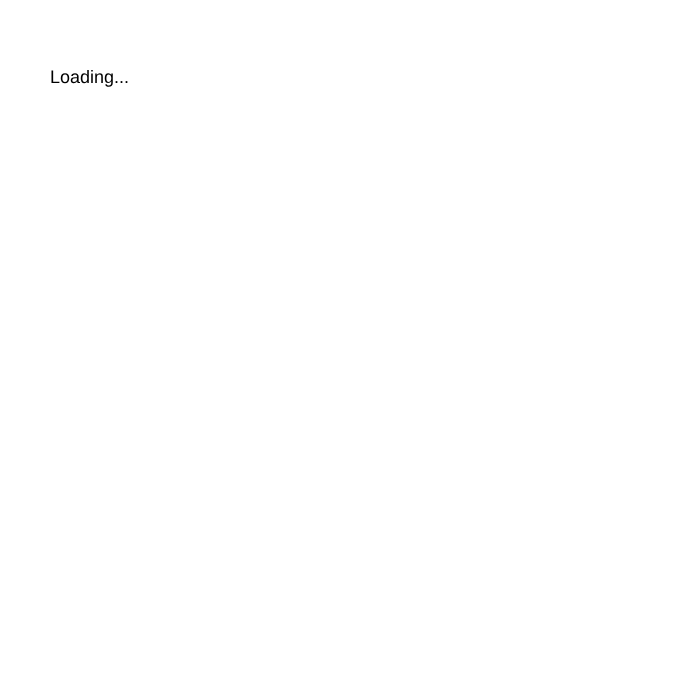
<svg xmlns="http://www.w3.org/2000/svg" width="697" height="692">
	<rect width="100%" height="100%" fill="#FFFFFF" />
	<text x="50" y="83" font-family="Liberation Sans" font-size="18" fill="#000000">Loading...</text>
</svg>
